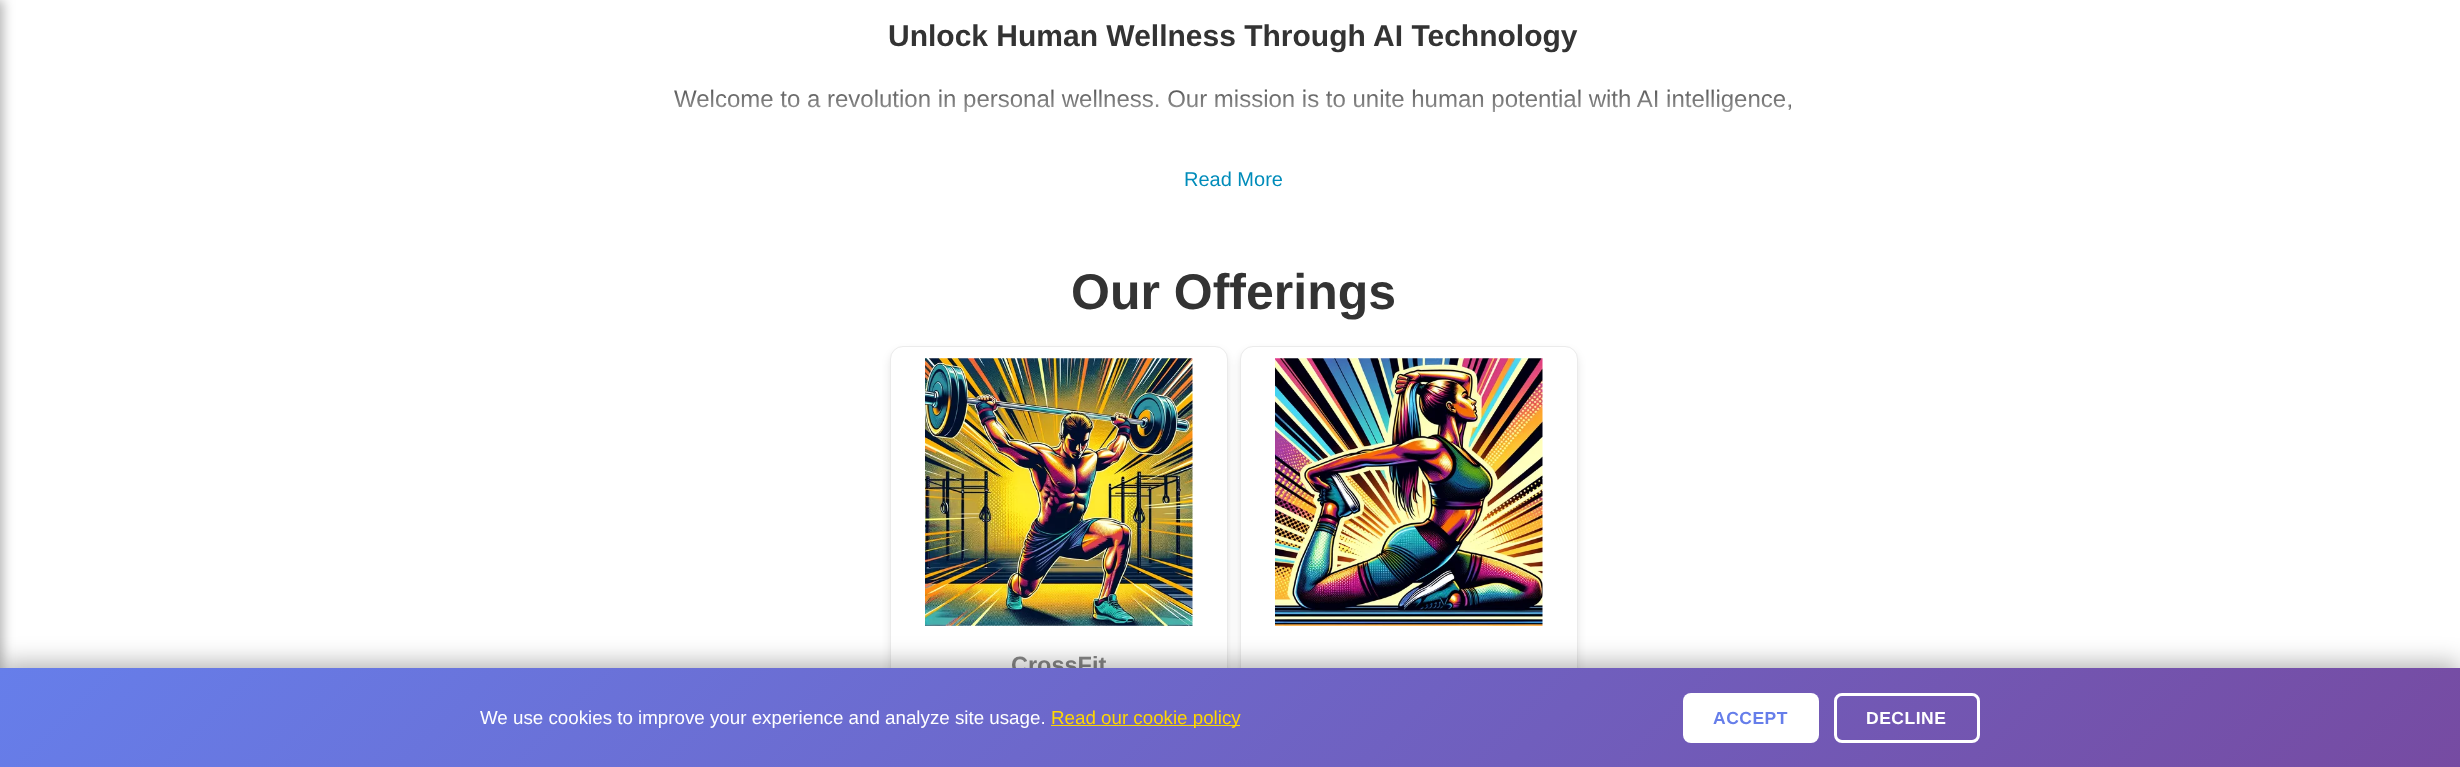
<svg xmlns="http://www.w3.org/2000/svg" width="2460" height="767">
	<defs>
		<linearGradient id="g1" gradientUnits="userSpaceOnUse" x1="1234" y1="144" x2="1234" y2="81"><stop offset="0" stop-color="#FFFFFF" /><stop offset="1" stop-color="#FFFFFF" stop-opacity="0" /></linearGradient>
		<linearGradient id="g2" gradientUnits="userSpaceOnUse" x1="590" y1="78" x2="1870" y2="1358"><stop offset="0" stop-color="#667EEA" /><stop offset="1" stop-color="#764BA2" /></linearGradient>
	</defs>
	<rect width="100%" height="100%" fill="#FFFFFF" />
	<rect x="-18" y="0" width="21" height="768" fill="#000000" fill-opacity="0.3" filter="blur(6px)" />
	<text x="888" y="46" font-family="Liberation Sans" font-size="30" font-weight="700" fill="#333333">Unlock Human Wellness Through AI Technology</text>
	<text x="674" y="107" font-family="Liberation Sans" font-size="24" fill="#3D3D3D">Welcome to a revolution in personal wellness. Our mission is to unite human potential with AI intelligence,</text>
	<rect x="674" y="89" width="1116" height="23" fill="url(#g1)" />
	<text x="1184" y="186" font-family="Liberation Sans" font-size="20" fill="#008CBA">Read More</text>
	<text x="1071" y="309" font-family="Liberation Sans" font-size="50" font-weight="700" fill="#333333">Our Offerings</text>
	<rect x="890" y="351" width="338" height="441" rx="13" fill="#000000" fill-opacity="0.1" filter="blur(4px)" />
	<rect x="890.5" y="346.5" width="337" height="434" rx="12.5" fill="#FFFFFF" stroke="#EBEBEB" />
	<image x="925" y="358" width="268" height="268" href="assets/img1.png" />
	<text x="1011" y="673" font-family="Liberation Sans" font-size="23.5" font-weight="700" fill="#888888">CrossFit</text>
	<rect x="1240" y="351" width="338" height="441" rx="13" fill="#000000" fill-opacity="0.1" filter="blur(4px)" />
	<rect x="1240.5" y="346.5" width="337" height="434" rx="12.5" fill="#FFFFFF" stroke="#EBEBEB" />
	<image x="1275" y="358" width="268" height="268" href="assets/img2.png" />
	<rect x="0" y="663" width="2460" height="100" fill="#000000" fill-opacity="0.3" filter="blur(12.5px)" />
	<rect x="0" y="668" width="2460" height="99" fill="url(#g2)" />
	<text x="480" y="724" font-family="Liberation Sans" font-size="18.75" fill="#FFFFFF">We use cookies to improve your experience and analyze site usage.</text>
	<rect x="1051" y="725" width="189" height="1" fill="#FFD700" />
	<text x="1051" y="724" font-family="Liberation Sans" font-size="18.75" fill="#FFD700">Read our cookie policy</text>
	<rect x="1683" y="693" width="136" height="50" rx="8" fill="#FFFFFF" />
	<text x="1713" y="724" font-family="Liberation Sans" font-size="17.5" font-weight="700" letter-spacing="0.5" fill="#667EEA">ACCEPT</text>
	<rect x="1835.5" y="694.5" width="143" height="47" rx="6.5" fill="none" stroke="#FFFFFF" stroke-width="3" />
	<text x="1866" y="724" font-family="Liberation Sans" font-size="17.5" font-weight="700" letter-spacing="0.5" fill="#FFFFFF">DECLINE</text>
</svg>
